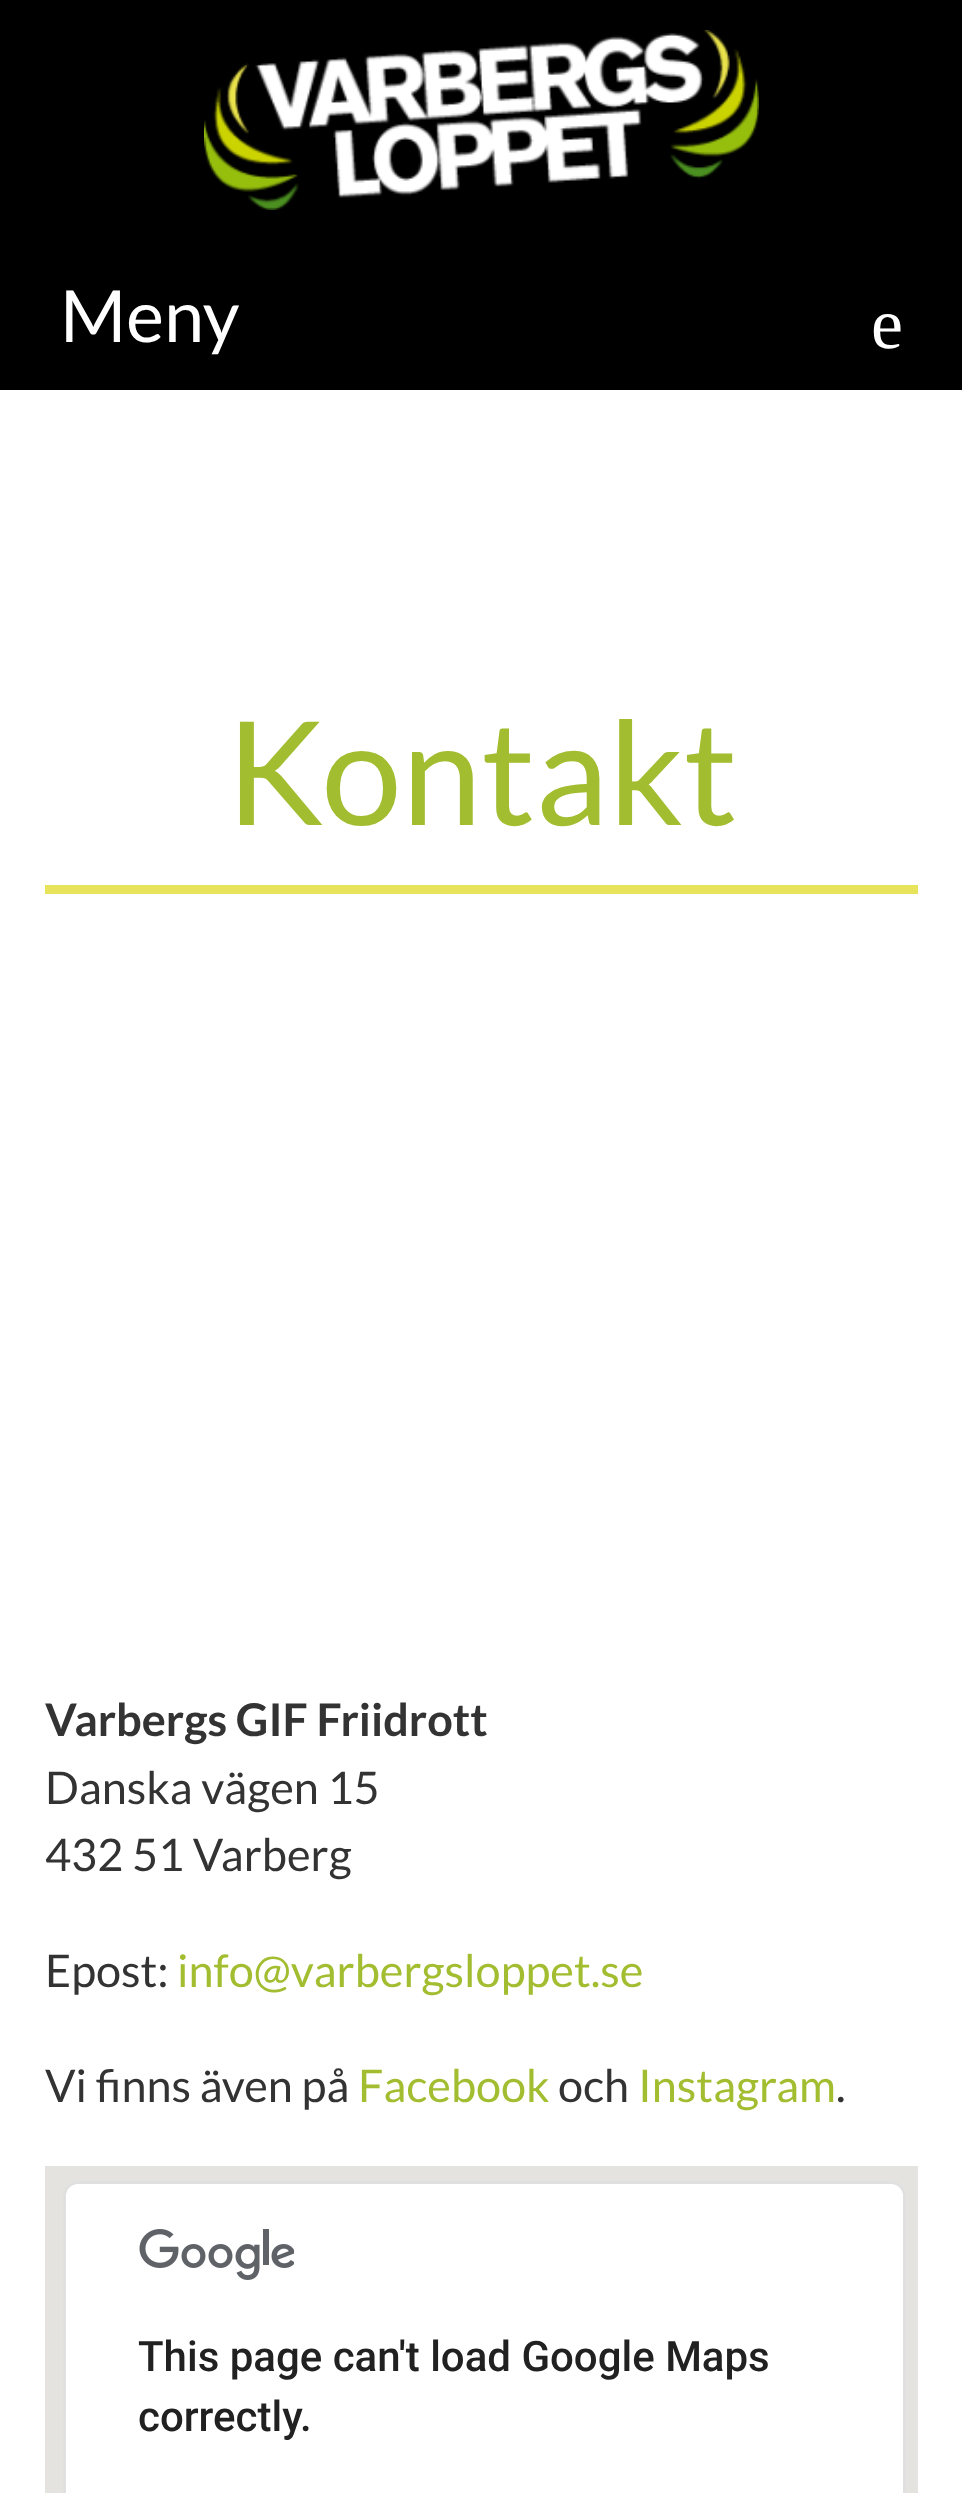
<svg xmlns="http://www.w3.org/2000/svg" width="962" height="2493">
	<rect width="100%" height="100%" fill="#FFFFFF" />
	<rect x="0" y="0" width="962" height="390" fill="#000000" />
	<image x="204" y="30" width="555" height="180" href="assets/img1.png" />
	<text x="60" y="342" font-family="Lato" font-size="72" fill="#FFFFFF">Meny</text>
	<text x="871" y="348" font-family="Liberation Serif" font-size="72" fill="#FFFFFF">e</text>
	<rect x="45" y="885" width="873" height="9" fill="#E7E35B" />
	<text x="226" y="825" font-family="Lato" font-size="144" fill="#A2BD30">Kontakt</text>
	<text x="45" y="1736" font-family="Lato" font-size="45" font-weight="700" fill="#333333">Varbergs GIF Friidrott</text>
	<g font-family="Lato" font-size="45" fill="#333333">
		<text x="45" y="1804">Danska vägen 15</text>
		<text x="45" y="1871">432 51 Varberg</text>
		<text x="45" y="1987">Epost:</text>
	</g>
	<text x="177" y="1987" font-family="Lato" font-size="45" fill="#A2BD30">info@varbergsloppet.se</text>
	<text x="45" y="2102" font-family="Lato" font-size="45" fill="#333333">Vi finns även på</text>
	<text x="358" y="2102" font-family="Lato" font-size="45" fill="#A2BD30">Facebook</text>
	<text x="558" y="2102" font-family="Lato" font-size="45" fill="#333333">och</text>
	<text x="638" y="2102" font-family="Lato" font-size="45" fill="#A2BD30">Instagram</text>
	<text x="836" y="2102" font-family="Lato" font-size="45" fill="#333333">.</text>
	<rect x="45" y="2166" width="873" height="327" fill="#E5E3DF" />
	<rect x="63" y="2181" width="843" height="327" rx="15" fill="#FFFFFF" />
	<rect x="64.5" y="2182.5" width="840" height="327" rx="13.5" fill="none" stroke="#000000" stroke-opacity="0.12" stroke-width="3" />
	<image x="139" y="2229" width="155" height="51" href="assets/img2.png" />
	<g font-family="Roboto" font-size="42" font-weight="500" fill="#212121">
		<text x="138" y="2371">This page can't load Google Maps</text>
		<text x="138" y="2431">correctly.</text>
	</g>
</svg>
